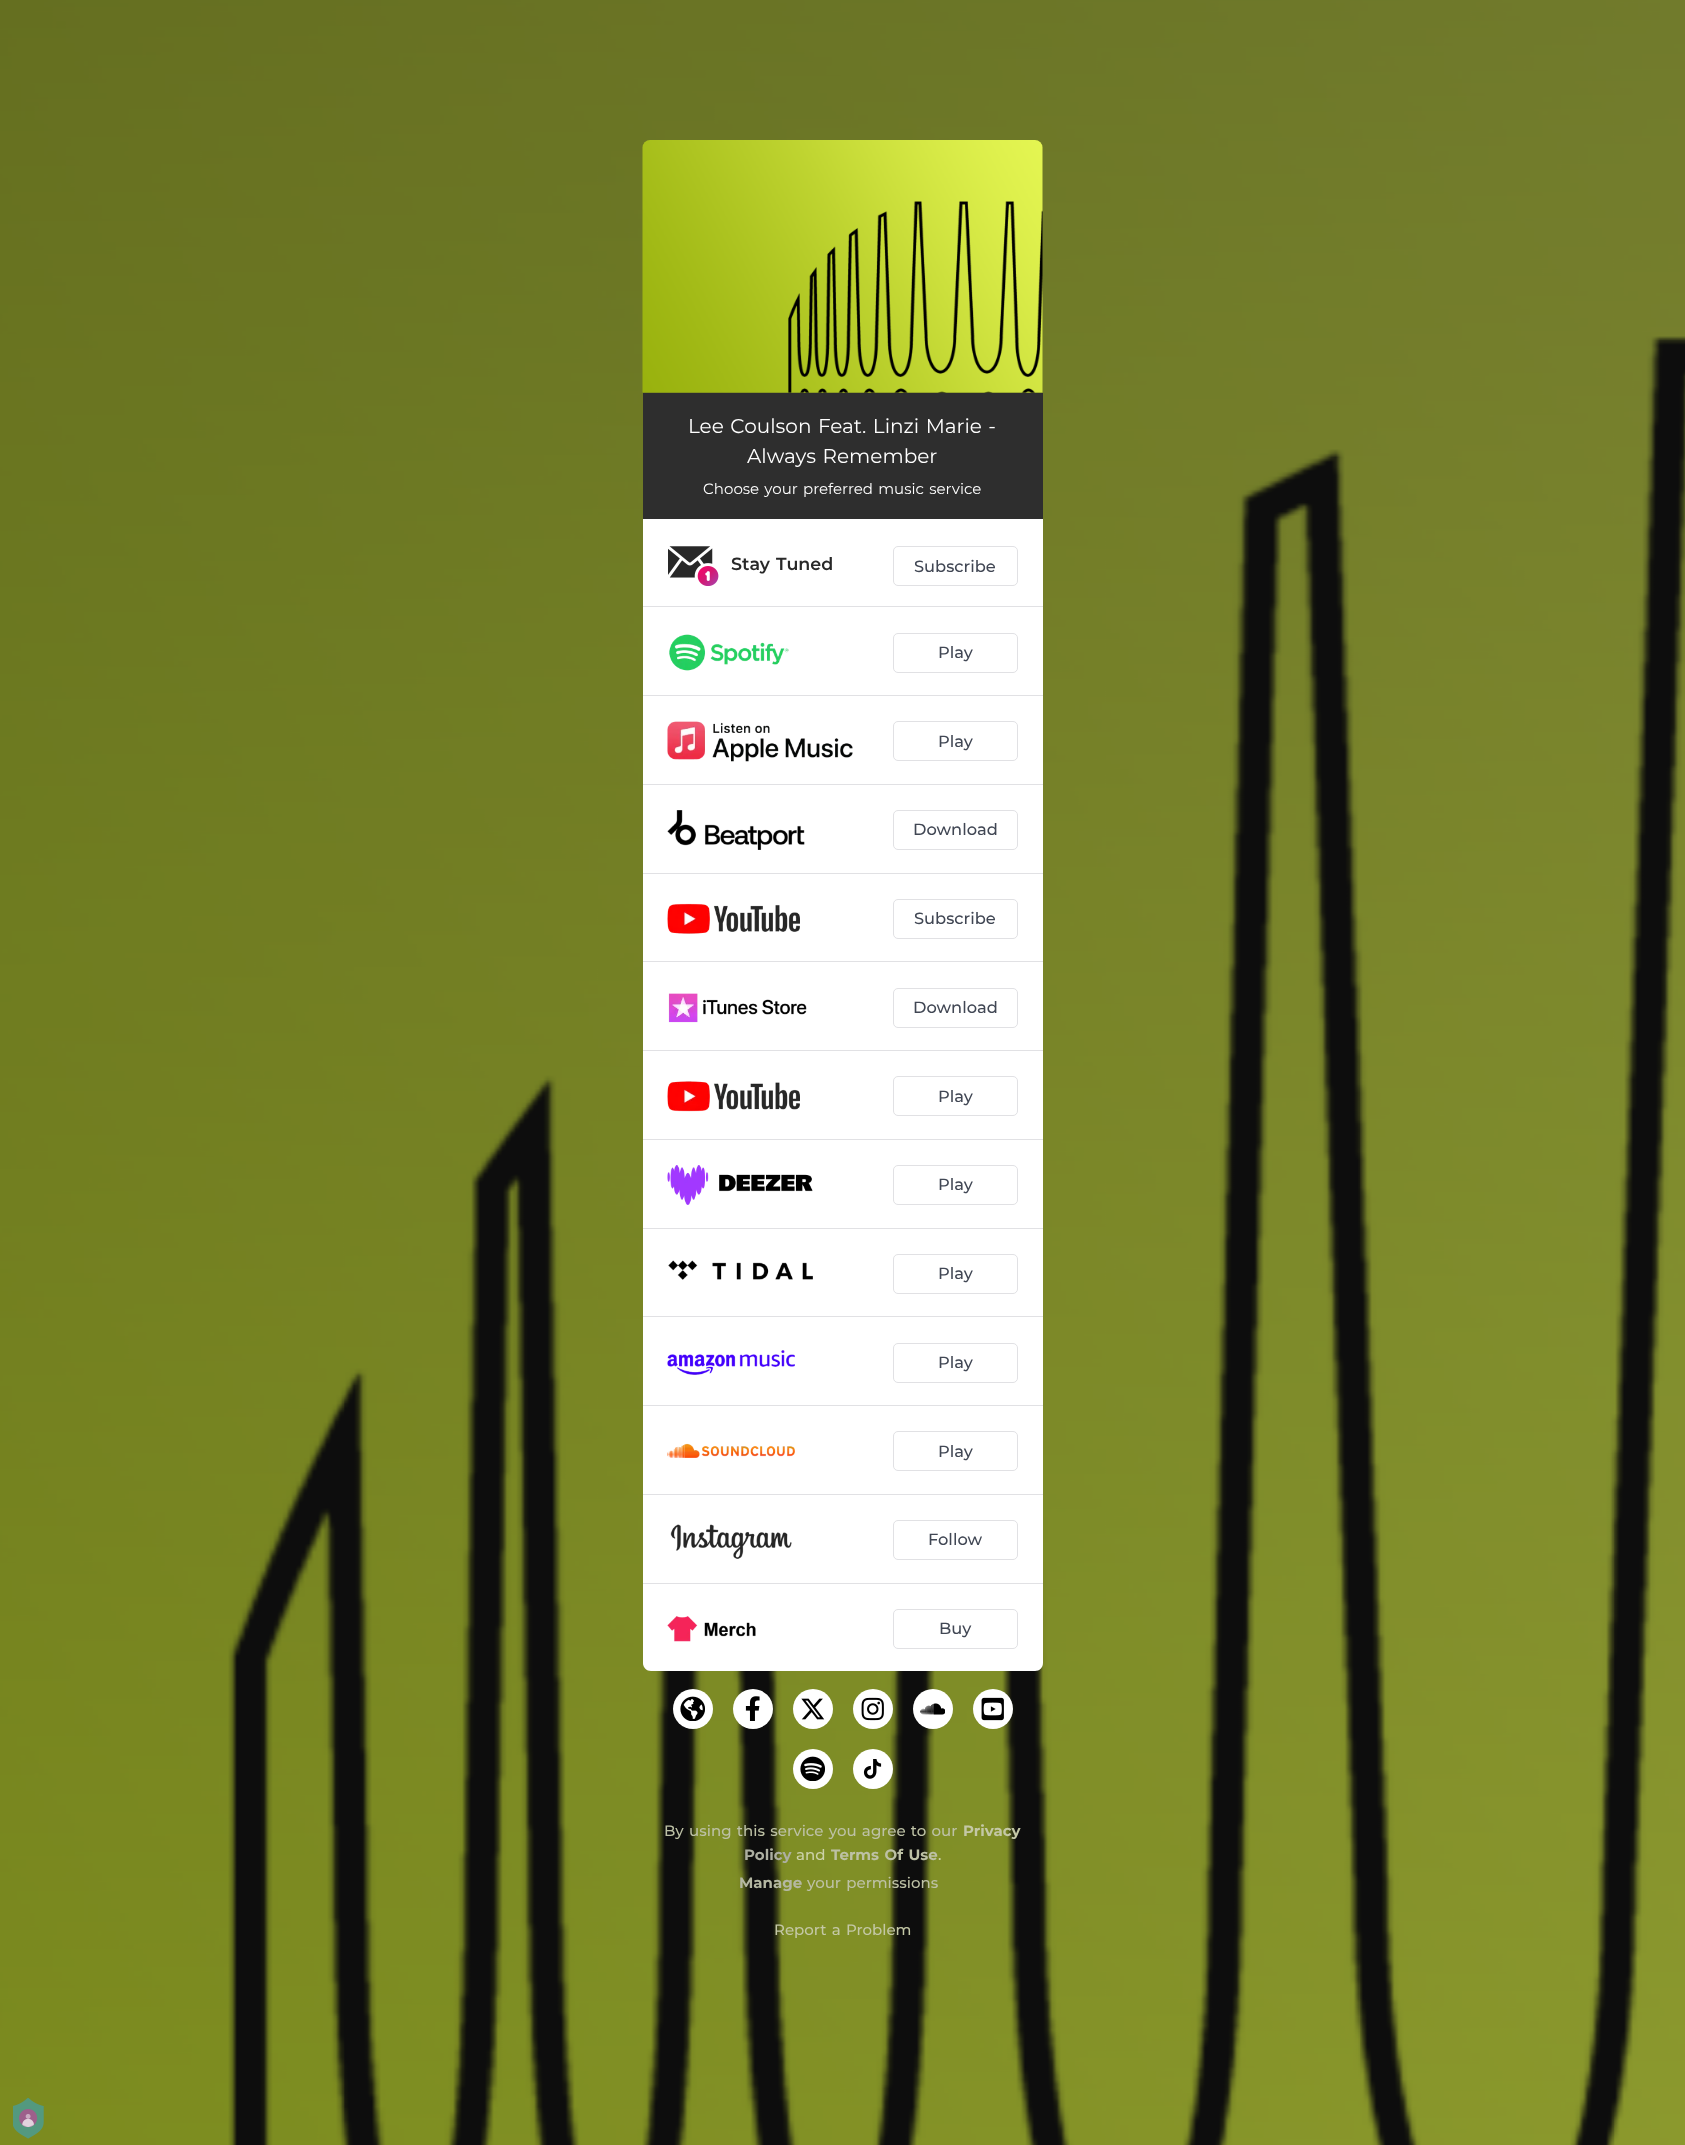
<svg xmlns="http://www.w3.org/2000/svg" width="1685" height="2145">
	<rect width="100%" height="100%" fill="#FFFFFF" />
	<image x="0" y="0" width="1685" height="2145" href="assets/img1.png" />
	<image x="642" y="140" width="401" height="253" href="assets/img2.png" />
	<rect x="643" y="393" width="400" height="126" fill="#2E2E2E" />
	<g font-family="Montserrat" font-size="20" fill="#FFFFFF">
		<text x="688" y="433" word-spacing="1.25">Lee Coulson Feat. Linzi Marie -</text>
		<text x="747" y="463" word-spacing="1.25">Always Remember</text>
	</g>
	<text x="703" y="494" word-spacing="1.25" font-family="Montserrat" font-size="15" fill="#FFFFFF">Choose your preferred music service</text>
	<path d="M643 519H1043V1663C1043 1667.5 1039.5 1671 1035 1671H651C646.5 1671 643 1667.5 643 1663Z" fill="#FFFFFF" />
	<rect x="643" y="606" width="400" height="1" fill="#E1E1E4" />
	<image x="668" y="546" width="51" height="40" href="assets/img3.png" />
	<text x="731" y="570" word-spacing="1.25" font-family="Montserrat" font-size="17.5" font-weight="600" fill="#282828">Stay Tuned</text>
	<rect x="893.5" y="546.5" width="124" height="39" rx="4.5" fill="none" stroke="#E1E1E4" />
	<text x="914" y="572" font-family="Montserrat" font-size="16.25" font-weight="500" fill="#414754">Subscribe</text>
	<rect x="643" y="695" width="400" height="1" fill="#E1E1E4" />
	<image x="669" y="634" width="120" height="37" href="assets/img4.png" />
	<rect x="893.5" y="633.5" width="124" height="39" rx="4.5" fill="none" stroke="#E1E1E4" />
	<text x="938" y="658" font-family="Montserrat" font-size="16.25" font-weight="500" fill="#414754">Play</text>
	<rect x="643" y="784" width="400" height="1" fill="#E1E1E4" />
	<image x="667" y="721" width="186" height="41" href="assets/img5.png" />
	<rect x="893.5" y="721.5" width="124" height="39" rx="4.5" fill="none" stroke="#E1E1E4" />
	<text x="938" y="747" font-family="Montserrat" font-size="16.25" font-weight="500" fill="#414754">Play</text>
	<rect x="643" y="873" width="400" height="1" fill="#E1E1E4" />
	<image x="667" y="810" width="138" height="40" href="assets/img6.png" />
	<rect x="893.5" y="810.5" width="124" height="39" rx="4.5" fill="none" stroke="#E1E1E4" />
	<text x="913" y="835" font-family="Montserrat" font-size="16.25" font-weight="500" fill="#414754">Download</text>
	<rect x="643" y="961" width="400" height="1" fill="#E1E1E4" />
	<image x="667" y="903" width="133" height="31" href="assets/img7.png" />
	<rect x="893.5" y="899.5" width="124" height="39" rx="4.5" fill="none" stroke="#E1E1E4" />
	<text x="914" y="924" font-family="Montserrat" font-size="16.25" font-weight="500" fill="#414754">Subscribe</text>
	<rect x="643" y="1050" width="400" height="1" fill="#E1E1E4" />
	<image x="668" y="993" width="139" height="30" href="assets/img8.png" />
	<rect x="893.5" y="988.5" width="124" height="39" rx="4.5" fill="none" stroke="#E1E1E4" />
	<text x="913" y="1013" font-family="Montserrat" font-size="16.25" font-weight="500" fill="#414754">Download</text>
	<rect x="643" y="1139" width="400" height="1" fill="#E1E1E4" />
	<image x="667" y="1081" width="133" height="31" href="assets/img9.png" />
	<rect x="893.5" y="1076.5" width="124" height="39" rx="4.5" fill="none" stroke="#E1E1E4" />
	<text x="938" y="1102" font-family="Montserrat" font-size="16.25" font-weight="500" fill="#414754">Play</text>
	<rect x="643" y="1228" width="400" height="1" fill="#E1E1E4" />
	<image x="667" y="1165" width="146" height="40" href="assets/img10.png" />
	<rect x="893.5" y="1165.5" width="124" height="39" rx="4.5" fill="none" stroke="#E1E1E4" />
	<text x="938" y="1190" font-family="Montserrat" font-size="16.25" font-weight="500" fill="#414754">Play</text>
	<rect x="643" y="1316" width="400" height="1" fill="#E1E1E4" />
	<image x="668" y="1260" width="145" height="20" href="assets/img11.png" />
	<rect x="893.5" y="1254.5" width="124" height="39" rx="4.5" fill="none" stroke="#E1E1E4" />
	<text x="938" y="1279" font-family="Montserrat" font-size="16.25" font-weight="500" fill="#414754">Play</text>
	<rect x="643" y="1405" width="400" height="1" fill="#E1E1E4" />
	<image x="667" y="1350" width="128" height="25" href="assets/img12.png" />
	<rect x="893.5" y="1343.5" width="124" height="39" rx="4.5" fill="none" stroke="#E1E1E4" />
	<text x="938" y="1368" font-family="Montserrat" font-size="16.25" font-weight="500" fill="#414754">Play</text>
	<rect x="643" y="1494" width="400" height="1" fill="#E1E1E4" />
	<image x="667" y="1443" width="128" height="15" href="assets/img13.png" />
	<rect x="893.5" y="1431.5" width="124" height="39" rx="4.5" fill="none" stroke="#E1E1E4" />
	<text x="938" y="1457" font-family="Montserrat" font-size="16.25" font-weight="500" fill="#414754">Play</text>
	<rect x="643" y="1583" width="400" height="1" fill="#E1E1E4" />
	<image x="670" y="1524" width="122" height="35" href="assets/img14.png" />
	<rect x="893.5" y="1520.5" width="124" height="39" rx="4.5" fill="none" stroke="#E1E1E4" />
	<text x="928" y="1545" font-family="Montserrat" font-size="16.25" font-weight="500" fill="#414754">Follow</text>
	<image x="667" y="1616" width="89" height="26" href="assets/img15.png" />
	<rect x="893.5" y="1609.5" width="124" height="39" rx="4.5" fill="none" stroke="#E1E1E4" />
	<text x="939" y="1634" font-family="Montserrat" font-size="16.25" font-weight="500" fill="#414754">Buy</text>
	<circle cx="693" cy="1709" r="20" fill="#FFFFFF" />
	<image x="680" y="1696" width="25" height="25" href="assets/img16.png" />
	<circle cx="753" cy="1709" r="20" fill="#FFFFFF" />
	<image x="745" y="1696" width="15" height="25" href="assets/img17.png" />
	<circle cx="813" cy="1709" r="20" fill="#FFFFFF" />
	<image x="801" y="1698" width="24" height="22" href="assets/img18.png" />
	<circle cx="873" cy="1709" r="20" fill="#FFFFFF" />
	<image x="861" y="1697" width="23" height="24" href="assets/img19.png" />
	<circle cx="933" cy="1709" r="20" fill="#FFFFFF" />
	<image x="920" y="1703" width="25" height="12" href="assets/img20.png" />
	<circle cx="993" cy="1709" r="20" fill="#FFFFFF" />
	<image x="981" y="1697" width="23" height="24" href="assets/img21.png" />
	<circle cx="813" cy="1769" r="20" fill="#FFFFFF" />
	<image x="800" y="1756" width="25" height="25" href="assets/img22.png" />
	<circle cx="873" cy="1769" r="20" fill="#FFFFFF" />
	<image x="863" y="1759" width="19" height="20" href="assets/img23.png" />
	<text x="664" y="1836" word-spacing="1.25" font-family="Montserrat" font-size="15" font-weight="500" fill="#BDC1A5">By using this service you agree to our</text>
	<text x="963" y="1836" font-family="Montserrat" font-size="15" font-weight="700" fill="#C4C8A6">Privacy</text>
	<text x="744" y="1860" font-family="Montserrat" font-size="15" font-weight="700" fill="#ADAFA1">Policy</text>
	<text x="796" y="1860" font-family="Montserrat" font-size="15" font-weight="500" fill="#CCD2A8">and</text>
	<text x="831" y="1860" word-spacing="1.25" font-family="Montserrat" font-size="15" font-weight="700" fill="#BDC1A5">Terms Of Use</text>
	<text x="938" y="1860" font-family="Montserrat" font-size="15" font-weight="500" fill="#CCD2A8">.</text>
	<text x="739" y="1888" font-family="Montserrat" font-size="15" font-weight="700" fill="#B5B8A3">Manage</text>
	<text x="807" y="1888" word-spacing="1.25" font-family="Montserrat" font-size="15" font-weight="500" fill="#BDC1A5">your permissions</text>
	<text x="774" y="1935" word-spacing="1.25" font-family="Montserrat" font-size="15" font-weight="500" fill="#C4C8A6">Report a Problem</text>
	<image x="13" y="2098" width="31" height="41" href="assets/img24.png" />
</svg>
